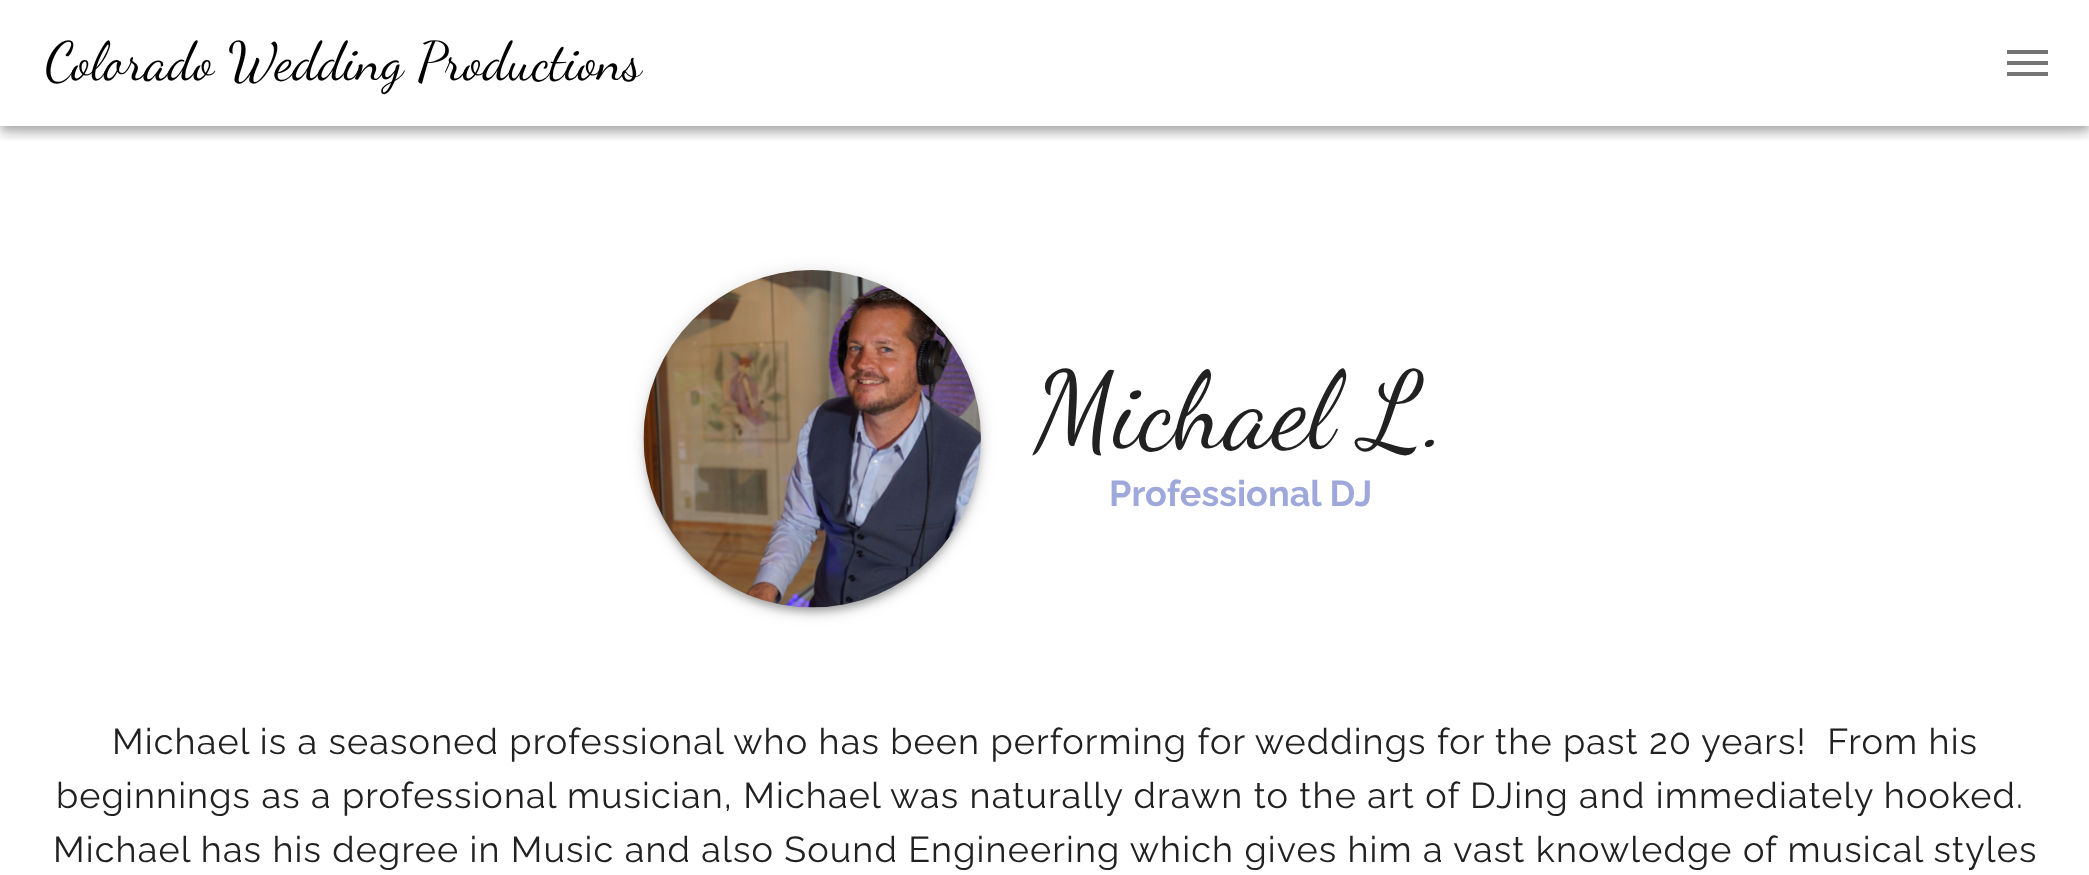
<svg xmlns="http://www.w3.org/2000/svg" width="2089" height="875">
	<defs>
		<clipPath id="clip1"><rect x="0" y="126" width="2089" height="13" /></clipPath>
		<clipPath id="clip2"><rect x="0" y="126" width="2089" height="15" /></clipPath>
		<clipPath id="clip3"><rect x="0" y="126" width="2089" height="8" /></clipPath>
	</defs>
	<rect width="100%" height="100%" fill="#FFFFFF" />
	<g clip-path="url(#clip1)">
		<rect x="0" y="2" width="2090" height="126" fill="#000000" fill-opacity="0.12" filter="blur(11px)" />
	</g>
	<g clip-path="url(#clip2)">
		<rect x="0" y="9" width="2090" height="126" fill="#000000" fill-opacity="0.14" filter="blur(5.5px)" />
	</g>
	<g clip-path="url(#clip3)">
		<rect x="2" y="7" width="2086" height="121" fill="#000000" fill-opacity="0.2" filter="blur(4.5px)" />
	</g>
	<text x="45" y="79" font-family="Dancing Script" font-size="54" fill="#000000">Colorado Wedding Productions</text>
	<path d="M2007 50H2048V54H2007ZM2007 61H2048V65H2007ZM2007 72H2048V76H2007Z" fill="#757575" />
	<rect x="644" y="272" width="337" height="338" rx="168.5" fill="#000000" fill-opacity="0.12" filter="blur(9px)" />
	<rect x="644" y="277" width="337" height="337" rx="168.5" fill="#000000" fill-opacity="0.14" filter="blur(4.5px)" />
	<rect x="648" y="281" width="329" height="329" rx="164.5" fill="#000000" fill-opacity="0.2" filter="blur(3.5px)" />
	<image x="643" y="270" width="338" height="338" href="assets/img1.png" />
	<text x="1034" y="446" font-family="Dancing Script" font-size="108" fill="#212121">Michael L.</text>
	<text x="1109" y="506" font-family="Raleway" font-size="36" font-weight="700" fill="#9FA8DA">Professional DJ</text>
	<g font-family="Raleway" font-size="36" letter-spacing="1.12" fill="#212121">
		<text x="112" y="754" xml:space="preserve">Michael is a seasoned professional who has been performing for weddings for the past 20 years!  From his</text>
		<text x="56" y="808">beginnings as a professional musician, Michael was naturally drawn to the art of DJing and immediately hooked.</text>
		<text x="53" y="862">Michael has his degree in Music and also Sound Engineering which gives him a vast knowledge of musical styles</text>
	</g>
</svg>
